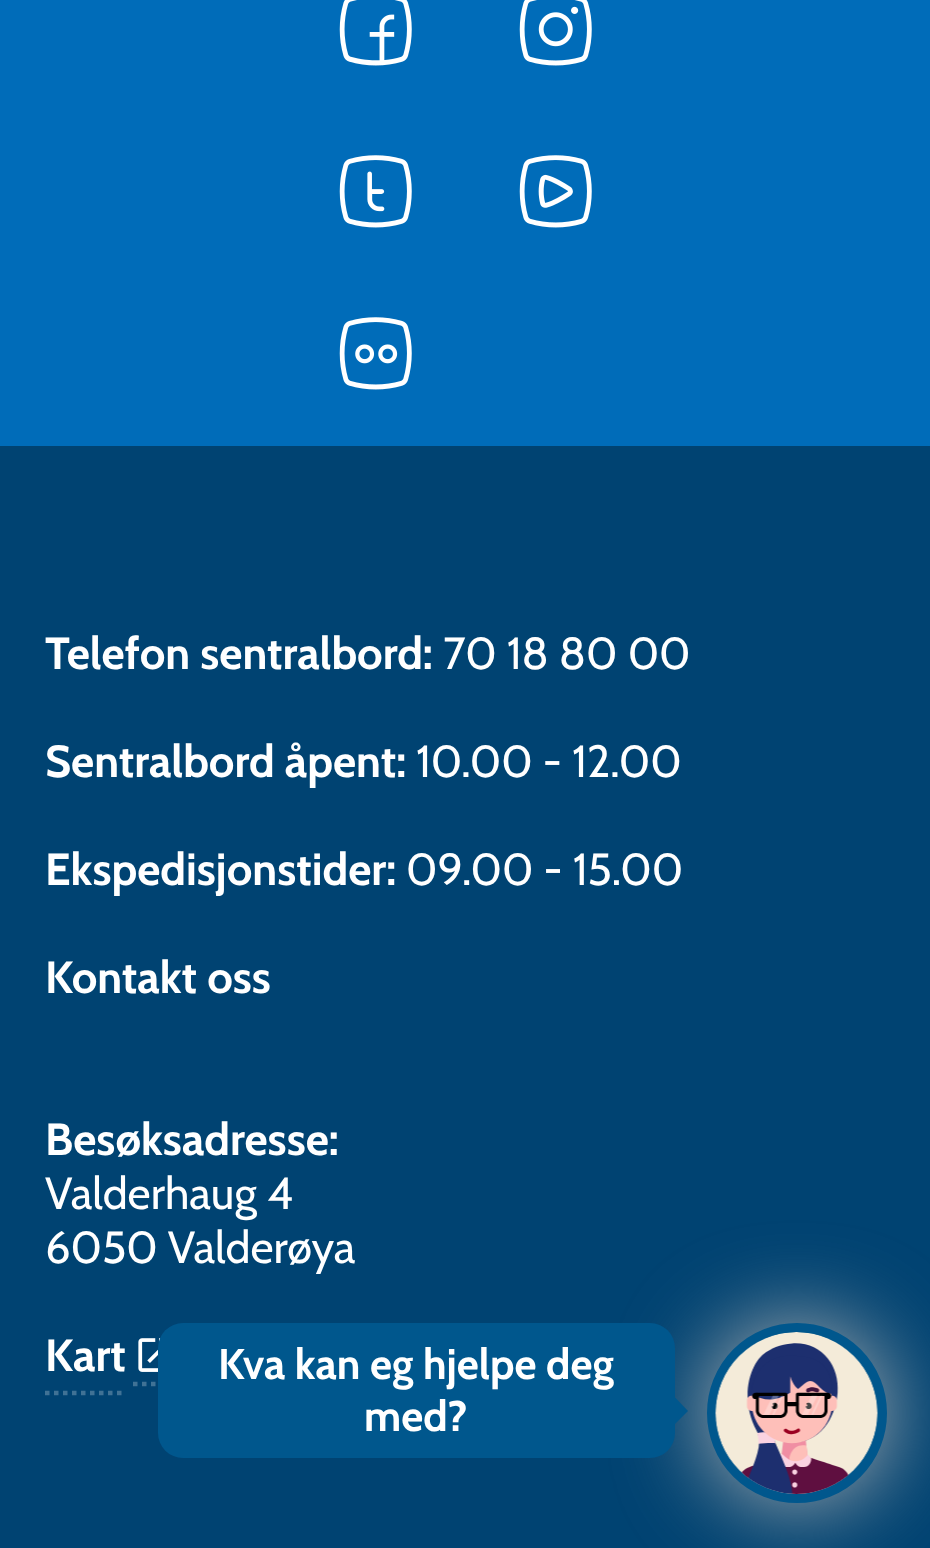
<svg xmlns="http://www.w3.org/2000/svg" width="930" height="1548">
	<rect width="100%" height="100%" fill="#006CB9" />
	<image x="339" y="0" width="73" height="66" href="assets/img1.png" />
	<image x="519" y="0" width="73" height="66" href="assets/img2.png" />
	<image x="339" y="155" width="73" height="73" href="assets/img3.png" />
	<image x="519" y="155" width="73" height="73" href="assets/img4.png" />
	<image x="339" y="317" width="73" height="73" href="assets/img5.png" />
	<rect x="0" y="446" width="930" height="1102" fill="#004372" />
	<text x="45" y="669" font-family="Cabin" font-size="45" font-weight="700" fill="#FFFFFF">Telefon sentralbord:</text>
	<text x="443" y="669" font-family="Cabin" font-size="45" fill="#FFFFFF">70 18 80 00</text>
	<text x="45" y="777" font-family="Cabin" font-size="45" font-weight="700" fill="#FFFFFF">Sentralbord åpent:</text>
	<text x="416" y="777" font-family="Cabin" font-size="45" fill="#FFFFFF">10.00 - 12.00</text>
	<text x="45" y="885" font-family="Cabin" font-size="45" font-weight="700" fill="#FFFFFF">Ekspedisjonstider:</text>
	<text x="406" y="885" font-family="Cabin" font-size="45" fill="#FFFFFF">09.00 - 15.00</text>
	<g font-family="Cabin" font-size="45" font-weight="700" fill="#FFFFFF">
		<text x="45" y="993">Kontakt oss</text>
		<text x="45" y="1155">Besøksadresse:</text>
	</g>
	<g font-family="Cabin" font-size="45" fill="#FFFFFF">
		<text x="45" y="1209">Valderhaug 4</text>
		<text x="45" y="1263">6050 Valderøya</text>
	</g>
	<path d="M45 1393H126" fill="none" stroke="#407295" stroke-width="4.5" stroke-dasharray="4.5 4.5" />
	<path d="M133 1384H178" fill="none" stroke="#407295" stroke-width="4.5" stroke-dasharray="4.5 4.5" />
	<text x="45" y="1371" font-family="Cabin" font-size="45" font-weight="700" fill="#FFFFFF">Kart</text>
	<image x="138" y="1338" width="23" height="34" href="assets/img6.png" />
	<rect x="707" y="1323" width="180" height="180" rx="90" fill="#B3B3B3" filter="blur(45px)" />
	<circle cx="797" cy="1413" r="85.5" fill="#00578D" stroke="#00578D" stroke-width="9" />
	<rect x="158" y="1323" width="517" height="135" rx="25" fill="#00578D" />
	<g font-family="Cabin" font-size="42.75" font-weight="700" fill="#FFFFFF">
		<text x="218" y="1379">Kva kan eg hjelpe deg</text>
		<text x="364" y="1431">med?</text>
	</g>
	<path d="M666 1433V1388L688 1411Z" fill="#00578D" />
	<image x="715" y="1332" width="163" height="162" href="assets/img7.png" />
</svg>
